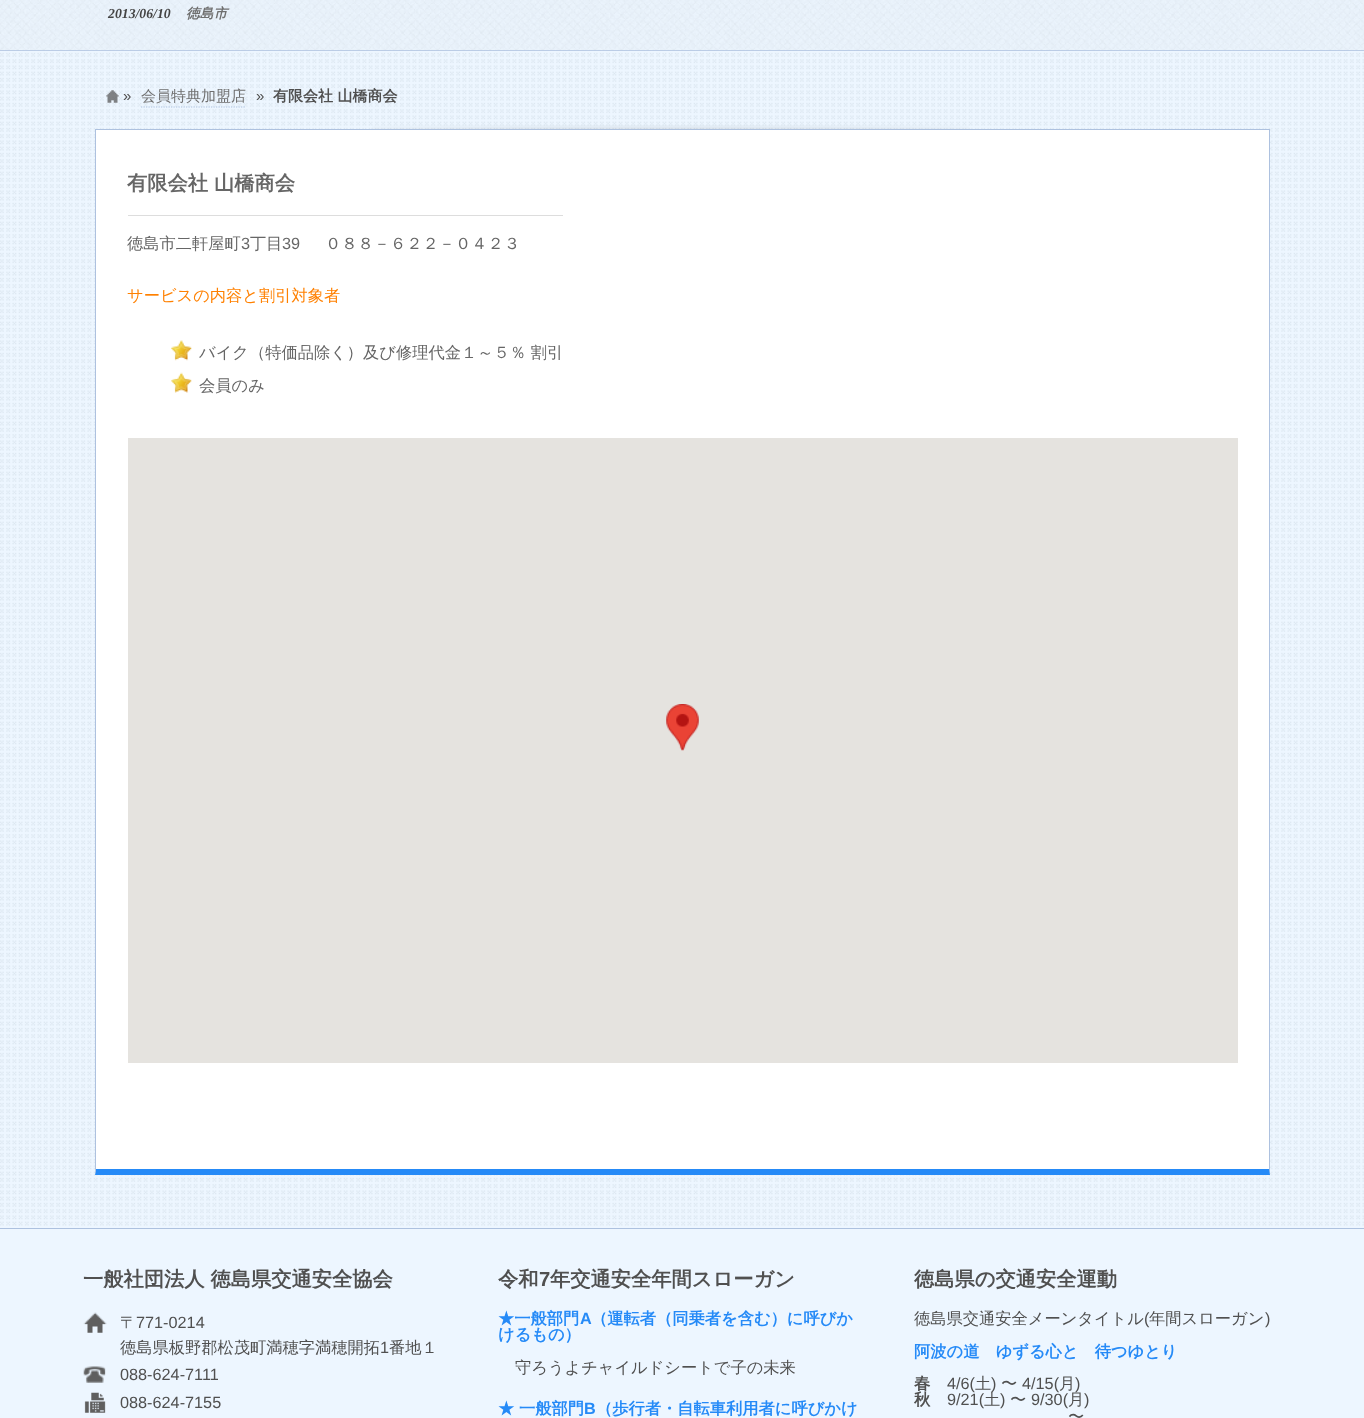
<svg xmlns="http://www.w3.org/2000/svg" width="1364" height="1418">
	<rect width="100%" height="100%" fill="#EDF6FF" />
	<rect x="0" y="50" width="1364" height="1" fill="#ADC1DF" />
	<image x="0" y="0" width="1364" height="51" href="assets/img1.png" />
	<text x="108" y="18" font-family="Liberation Serif" font-size="13.75" font-weight="700" font-style="italic" fill="#444444">2013/06/10</text>
	<text x="186" y="18" font-family="WenQuanYi Zen Hei" font-size="13.75" font-weight="700" font-style="italic" fill="#6F6F6F">徳島市</text>
	<image x="0" y="51" width="1364" height="1175" href="assets/img2.png" />
	<image x="106" y="90" width="13" height="13" href="assets/img3.png" />
	<text x="123" y="101" font-family="Liberation Sans" font-size="15" fill="#505050">»</text>
	<text x="141" y="101" font-family="WenQuanYi Zen Hei" font-size="15" font-weight="500" fill="#6F6F6F">会員特典加盟店</text>
	<path d="M141 107H246" fill="none" stroke="#ADC1DF" stroke-width="1.2" stroke-dasharray="1.25 1.25" />
	<text x="256" y="101" font-family="Liberation Sans" font-size="15" fill="#505050">»</text>
	<text x="273" y="101" font-family="WenQuanYi Zen Hei" font-size="15" font-weight="700" fill="#505050">有限会社 山橋商会</text>
	<image x="372" y="125" width="597" height="4" href="assets/img4.png" />
	<rect x="96" y="130" width="1173" height="1039" fill="#FFFFFF" />
	<rect x="95" y="129" width="1175" height="1" fill="#ADC1DF" />
	<path d="M1270 129V1175L1269 1169V130Z" fill="#ADC1DF" />
	<path d="M1270 1175H95L96 1169H1269Z" fill="#258AF7" />
	<path d="M95 1175V129L96 130V1169Z" fill="#ADC1DF" />
	<text x="127" y="190" font-family="WenQuanYi Zen Hei" font-size="20.25" font-weight="700" fill="#666666">有限会社 山橋商会</text>
	<rect x="128" y="215" width="435" height="1" fill="#DDDDDD" />
	<text x="127" y="249" font-family="WenQuanYi Zen Hei" font-size="16.25" font-weight="500" fill="#666666">徳島市二軒屋町</text>
	<text x="241" y="249" font-family="Liberation Sans" font-size="16.25" fill="#666666">3</text>
	<text x="250" y="249" font-family="WenQuanYi Zen Hei" font-size="16.25" font-weight="500" fill="#666666">丁目</text>
	<text x="282" y="249" font-family="Liberation Sans" font-size="16.25" fill="#666666">39</text>
	<text x="325" y="249" font-family="WenQuanYi Zen Hei" font-size="16.25" font-weight="500" fill="#666666">０８８－６２２－０４２３</text>
	<text x="127" y="301" font-family="WenQuanYi Zen Hei" font-size="16.25" font-weight="500" fill="#FF8000">サービスの内容と割引対象者</text>
	<image x="171" y="340" width="21" height="21" href="assets/img5.png" />
	<text x="199" y="358" font-family="WenQuanYi Zen Hei" font-size="16.25" font-weight="500" fill="#666666">バイク（特価品除く）及び修理代金１～５％ 割引</text>
	<image x="171" y="372" width="21" height="21" href="assets/img6.png" />
	<text x="199" y="391" font-family="WenQuanYi Zen Hei" font-size="16.25" font-weight="500" fill="#666666">会員のみ</text>
	<rect x="128" y="438" width="1110" height="625" fill="#E5E3DF" />
	<image x="666" y="704" width="33" height="47" href="assets/img7.png" />
	<rect x="0" y="1228" width="1364" height="1" fill="#ADC1DF" />
	<text x="83" y="1286" font-family="WenQuanYi Zen Hei" font-size="20.25" font-weight="700" fill="#505050">一般社団法人 徳島県交通安全協会</text>
	<image x="83" y="1312" width="24" height="21" href="assets/img8.png" />
	<text x="120" y="1328" font-family="WenQuanYi Zen Hei" font-size="16.25" font-weight="500" fill="#505050">〒</text>
	<text x="136" y="1328" font-family="Liberation Sans" font-size="16.25" fill="#505050">771-0214</text>
	<text x="120" y="1353" font-family="WenQuanYi Zen Hei" font-size="16.25" font-weight="500" fill="#505050">徳島県板野郡松茂町満穂字満穂開拓</text>
	<text x="380" y="1353" font-family="Liberation Sans" font-size="16.25" fill="#505050">1</text>
	<text x="389" y="1353" font-family="WenQuanYi Zen Hei" font-size="16.25" font-weight="500" fill="#505050">番地１</text>
	<image x="83" y="1366" width="23" height="17" href="assets/img9.png" />
	<text x="120" y="1380" font-family="Liberation Sans" font-size="16.25" fill="#505050">088-624-7111</text>
	<image x="84" y="1392" width="22" height="21" href="assets/img10.png" />
	<text x="120" y="1408" font-family="Liberation Sans" font-size="16.25" fill="#505050">088-624-7155</text>
	<text x="498" y="1286" font-family="WenQuanYi Zen Hei" font-size="20.25" font-weight="700" fill="#505050">令和</text>
	<text x="539" y="1286" font-family="Liberation Sans" font-size="20.25" font-weight="700" fill="#505050">7</text>
	<text x="550" y="1286" font-family="WenQuanYi Zen Hei" font-size="20.25" font-weight="700" fill="#505050">年交通安全年間スローガン</text>
	<text x="498" y="1324" font-family="WenQuanYi Zen Hei" font-size="16.25" font-weight="700" fill="#258AF7">★一般部門</text>
	<text x="580" y="1324" font-family="Liberation Sans" font-size="16.25" font-weight="700" fill="#258AF7">A</text>
	<g font-family="WenQuanYi Zen Hei" font-size="16.25" font-weight="700" fill="#258AF7">
		<text x="591" y="1324">（運転者（同乗者を含む）に呼びか</text>
		<text x="498" y="1340">けるもの）</text>
	</g>
	<text x="515" y="1373" font-family="WenQuanYi Zen Hei" font-size="16.25" font-weight="500" fill="#505050">守ろうよチャイルドシートで子の未来</text>
	<text x="498" y="1414" font-family="WenQuanYi Zen Hei" font-size="16.25" font-weight="700" fill="#258AF7">★ 一般部門</text>
	<text x="584" y="1414" font-family="Liberation Sans" font-size="16.25" font-weight="700" fill="#258AF7">B</text>
	<text x="596" y="1414" font-family="WenQuanYi Zen Hei" font-size="16.25" font-weight="700" fill="#258AF7">（歩行者・自転車利用者に呼びかけ</text>
	<text x="914" y="1286" font-family="WenQuanYi Zen Hei" font-size="20.25" font-weight="700" fill="#505050">徳島県の交通安全運動</text>
	<text x="914" y="1324" font-family="WenQuanYi Zen Hei" font-size="16.25" font-weight="500" fill="#505050">徳島県交通安全メーンタイトル</text>
	<text x="1144" y="1324" font-family="Liberation Sans" font-size="16.25" fill="#505050">(</text>
	<text x="1149" y="1324" font-family="WenQuanYi Zen Hei" font-size="16.25" font-weight="500" fill="#505050">年間スローガン</text>
	<text x="1265" y="1324" font-family="Liberation Sans" font-size="16.25" fill="#505050">)</text>
	<text x="914" y="1357" font-family="WenQuanYi Zen Hei" font-size="16.25" font-weight="700" fill="#258AF7">阿波の道　ゆずる心と　待つゆとり</text>
	<text x="914" y="1389" font-family="WenQuanYi Zen Hei" font-size="16.25" font-weight="700" fill="#505050">春</text>
	<text x="947" y="1389" font-family="Liberation Sans" font-size="16.25" fill="#505050">4/6(</text>
	<text x="975" y="1389" font-family="WenQuanYi Zen Hei" font-size="16.25" font-weight="500" fill="#505050">土</text>
	<text x="991" y="1389" font-family="Liberation Sans" font-size="16.25" fill="#505050">)</text>
	<text x="1001" y="1389" font-family="WenQuanYi Zen Hei" font-size="16.25" font-weight="500" fill="#505050">〜</text>
	<text x="1022" y="1389" font-family="Liberation Sans" font-size="16.25" fill="#505050">4/15(</text>
	<text x="1059" y="1389" font-family="WenQuanYi Zen Hei" font-size="16.25" font-weight="500" fill="#505050">月</text>
	<text x="1075" y="1389" font-family="Liberation Sans" font-size="16.25" fill="#505050">)</text>
	<text x="914" y="1405" font-family="WenQuanYi Zen Hei" font-size="16.25" font-weight="700" fill="#505050">秋</text>
	<text x="947" y="1405" font-family="Liberation Sans" font-size="16.25" fill="#505050">9/21(</text>
	<text x="984" y="1405" font-family="WenQuanYi Zen Hei" font-size="16.25" font-weight="500" fill="#505050">土</text>
	<text x="1000" y="1405" font-family="Liberation Sans" font-size="16.25" fill="#505050">)</text>
	<text x="1010" y="1405" font-family="WenQuanYi Zen Hei" font-size="16.25" font-weight="500" fill="#505050">〜</text>
	<text x="1031" y="1405" font-family="Liberation Sans" font-size="16.25" fill="#505050">9/30(</text>
	<text x="1068" y="1405" font-family="WenQuanYi Zen Hei" font-size="16.25" font-weight="500" fill="#505050">月</text>
	<text x="1084" y="1405" font-family="Liberation Sans" font-size="16.25" fill="#505050">)</text>
	<text x="1068" y="1422" font-family="WenQuanYi Zen Hei" font-size="16.25" font-weight="500" fill="#505050">〜</text>
</svg>
